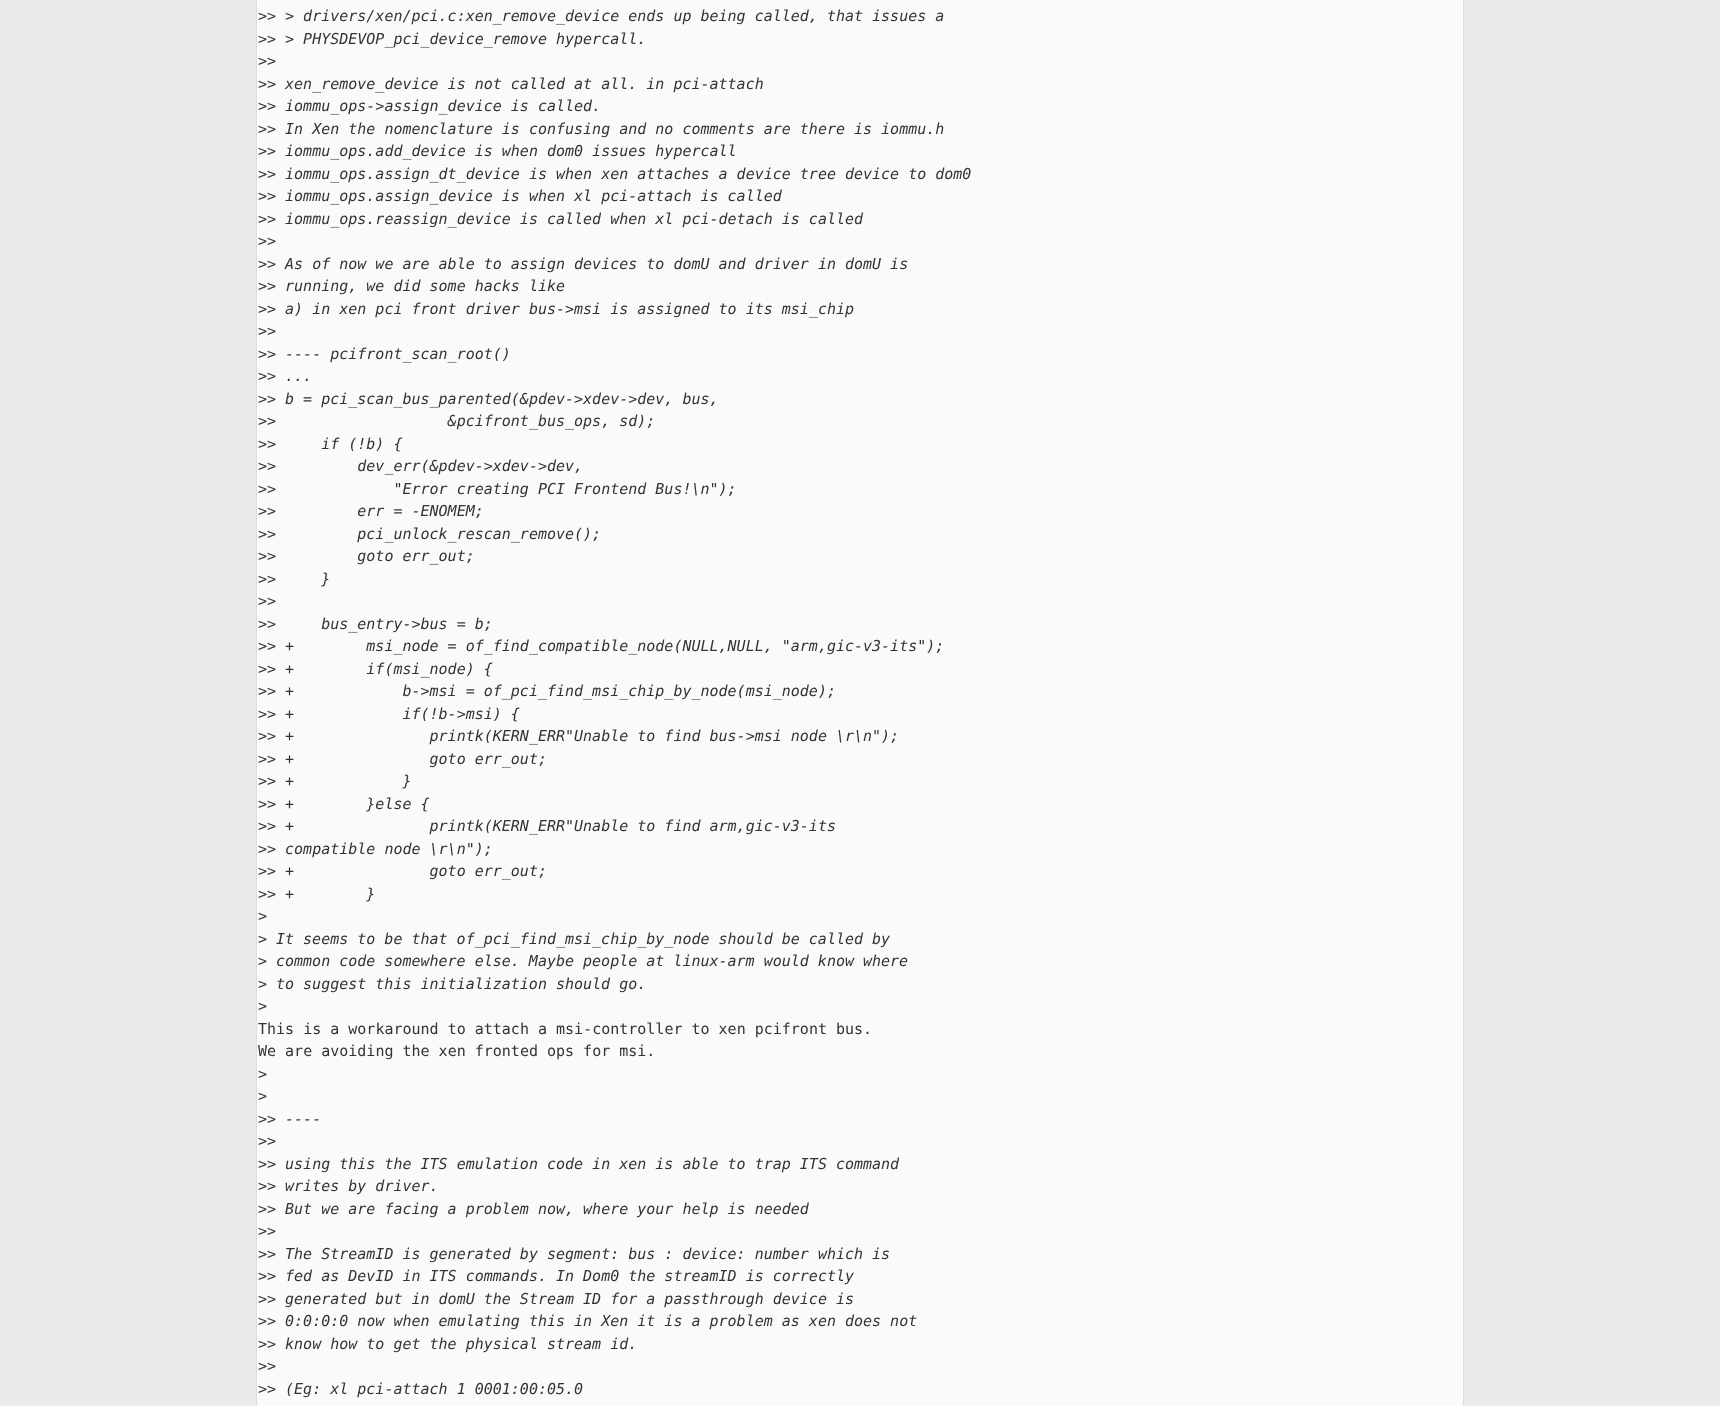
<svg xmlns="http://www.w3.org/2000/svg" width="1720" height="1406">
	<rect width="100%" height="100%" fill="#E9EAEA" />
	<rect x="256.5" y="-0.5" width="1207" height="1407" fill="#FAFAFA" stroke="#DDDDDD" />
	<text x="258" y="21" font-family="DejaVu Sans Mono" font-size="15" fill="#333333">&gt;</text>
	<text x="267" y="21" font-family="DejaVu Sans Mono" font-size="15" font-style="italic" fill="#333333">&gt; &gt; drivers/xen/pci.c:xen_remove_device ends up being called, that issues a</text>
	<text x="258" y="44" font-family="DejaVu Sans Mono" font-size="15" fill="#333333">&gt;</text>
	<text x="267" y="44" font-family="DejaVu Sans Mono" font-size="15" font-style="italic" fill="#333333">&gt; &gt; PHYSDEVOP_pci_device_remove hypercall.</text>
	<text x="258" y="66" font-family="DejaVu Sans Mono" font-size="15" fill="#333333">&gt;</text>
	<text x="267" y="66" font-family="DejaVu Sans Mono" font-size="15" font-style="italic" fill="#333333">&gt;</text>
	<text x="258" y="89" font-family="DejaVu Sans Mono" font-size="15" fill="#333333">&gt;</text>
	<text x="267" y="89" font-family="DejaVu Sans Mono" font-size="15" font-style="italic" fill="#333333">&gt; xen_remove_device is not called at all. in pci-attach</text>
	<text x="258" y="111" font-family="DejaVu Sans Mono" font-size="15" fill="#333333">&gt;</text>
	<text x="267" y="111" font-family="DejaVu Sans Mono" font-size="15" font-style="italic" fill="#333333">&gt; iommu_ops-&gt;assign_device is called.</text>
	<text x="258" y="134" font-family="DejaVu Sans Mono" font-size="15" fill="#333333">&gt;</text>
	<text x="267" y="134" font-family="DejaVu Sans Mono" font-size="15" font-style="italic" fill="#333333">&gt; In Xen the nomenclature is confusing and no comments are there is iommu.h</text>
	<text x="258" y="156" font-family="DejaVu Sans Mono" font-size="15" fill="#333333">&gt;</text>
	<text x="267" y="156" font-family="DejaVu Sans Mono" font-size="15" font-style="italic" fill="#333333">&gt; iommu_ops.add_device is when dom0 issues hypercall</text>
	<text x="258" y="179" font-family="DejaVu Sans Mono" font-size="15" fill="#333333">&gt;</text>
	<text x="267" y="179" font-family="DejaVu Sans Mono" font-size="15" font-style="italic" fill="#333333">&gt; iommu_ops.assign_dt_device is when xen attaches a device tree device to dom0</text>
	<text x="258" y="201" font-family="DejaVu Sans Mono" font-size="15" fill="#333333">&gt;</text>
	<text x="267" y="201" font-family="DejaVu Sans Mono" font-size="15" font-style="italic" fill="#333333">&gt; iommu_ops.assign_device is when xl pci-attach is called</text>
	<text x="258" y="224" font-family="DejaVu Sans Mono" font-size="15" fill="#333333">&gt;</text>
	<text x="267" y="224" font-family="DejaVu Sans Mono" font-size="15" font-style="italic" fill="#333333">&gt; iommu_ops.reassign_device is called when xl pci-detach is called</text>
	<text x="258" y="246" font-family="DejaVu Sans Mono" font-size="15" fill="#333333">&gt;</text>
	<text x="267" y="246" font-family="DejaVu Sans Mono" font-size="15" font-style="italic" fill="#333333">&gt;</text>
	<text x="258" y="269" font-family="DejaVu Sans Mono" font-size="15" fill="#333333">&gt;</text>
	<text x="267" y="269" font-family="DejaVu Sans Mono" font-size="15" font-style="italic" fill="#333333">&gt; As of now we are able to assign devices to domU and driver in domU is</text>
	<text x="258" y="291" font-family="DejaVu Sans Mono" font-size="15" fill="#333333">&gt;</text>
	<text x="267" y="291" font-family="DejaVu Sans Mono" font-size="15" font-style="italic" fill="#333333">&gt; running, we did some hacks like</text>
	<text x="258" y="314" font-family="DejaVu Sans Mono" font-size="15" fill="#333333">&gt;</text>
	<text x="267" y="314" font-family="DejaVu Sans Mono" font-size="15" font-style="italic" fill="#333333">&gt; a) in xen pci front driver bus-&gt;msi is assigned to its msi_chip</text>
	<text x="258" y="336" font-family="DejaVu Sans Mono" font-size="15" fill="#333333">&gt;</text>
	<text x="267" y="336" font-family="DejaVu Sans Mono" font-size="15" font-style="italic" fill="#333333">&gt;</text>
	<text x="258" y="359" font-family="DejaVu Sans Mono" font-size="15" fill="#333333">&gt;</text>
	<text x="267" y="359" font-family="DejaVu Sans Mono" font-size="15" font-style="italic" fill="#333333">&gt; ---- pcifront_scan_root()</text>
	<text x="258" y="381" font-family="DejaVu Sans Mono" font-size="15" fill="#333333">&gt;</text>
	<text x="267" y="381" font-family="DejaVu Sans Mono" font-size="15" font-style="italic" fill="#333333">&gt; ...</text>
	<text x="258" y="404" font-family="DejaVu Sans Mono" font-size="15" fill="#333333">&gt;</text>
	<text x="267" y="404" font-family="DejaVu Sans Mono" font-size="15" font-style="italic" fill="#333333">&gt; b = pci_scan_bus_parented(&amp;pdev-&gt;xdev-&gt;dev, bus,</text>
	<text x="258" y="426" font-family="DejaVu Sans Mono" font-size="15" fill="#333333">&gt;</text>
	<text x="267" y="426" font-family="DejaVu Sans Mono" font-size="15" font-style="italic" fill="#333333" xml:space="preserve">&gt;                   &amp;pcifront_bus_ops, sd);</text>
	<text x="258" y="449" font-family="DejaVu Sans Mono" font-size="15" fill="#333333">&gt;</text>
	<text x="267" y="449" font-family="DejaVu Sans Mono" font-size="15" font-style="italic" fill="#333333" xml:space="preserve">&gt;     if (!b) {</text>
	<text x="258" y="471" font-family="DejaVu Sans Mono" font-size="15" fill="#333333">&gt;</text>
	<text x="267" y="471" font-family="DejaVu Sans Mono" font-size="15" font-style="italic" fill="#333333" xml:space="preserve">&gt;         dev_err(&amp;pdev-&gt;xdev-&gt;dev,</text>
	<text x="258" y="494" font-family="DejaVu Sans Mono" font-size="15" fill="#333333">&gt;</text>
	<text x="267" y="494" font-family="DejaVu Sans Mono" font-size="15" font-style="italic" fill="#333333" xml:space="preserve">&gt;             "Error creating PCI Frontend Bus!\n");</text>
	<text x="258" y="516" font-family="DejaVu Sans Mono" font-size="15" fill="#333333">&gt;</text>
	<text x="267" y="516" font-family="DejaVu Sans Mono" font-size="15" font-style="italic" fill="#333333" xml:space="preserve">&gt;         err = -ENOMEM;</text>
	<text x="258" y="539" font-family="DejaVu Sans Mono" font-size="15" fill="#333333">&gt;</text>
	<text x="267" y="539" font-family="DejaVu Sans Mono" font-size="15" font-style="italic" fill="#333333" xml:space="preserve">&gt;         pci_unlock_rescan_remove();</text>
	<text x="258" y="561" font-family="DejaVu Sans Mono" font-size="15" fill="#333333">&gt;</text>
	<text x="267" y="561" font-family="DejaVu Sans Mono" font-size="15" font-style="italic" fill="#333333" xml:space="preserve">&gt;         goto err_out;</text>
	<text x="258" y="584" font-family="DejaVu Sans Mono" font-size="15" fill="#333333">&gt;</text>
	<text x="267" y="584" font-family="DejaVu Sans Mono" font-size="15" font-style="italic" fill="#333333" xml:space="preserve">&gt;     }</text>
	<text x="258" y="606" font-family="DejaVu Sans Mono" font-size="15" fill="#333333">&gt;</text>
	<text x="267" y="606" font-family="DejaVu Sans Mono" font-size="15" font-style="italic" fill="#333333">&gt;</text>
	<text x="258" y="629" font-family="DejaVu Sans Mono" font-size="15" fill="#333333">&gt;</text>
	<text x="267" y="629" font-family="DejaVu Sans Mono" font-size="15" font-style="italic" fill="#333333" xml:space="preserve">&gt;     bus_entry-&gt;bus = b;</text>
	<text x="258" y="651" font-family="DejaVu Sans Mono" font-size="15" fill="#333333">&gt;</text>
	<text x="267" y="651" font-family="DejaVu Sans Mono" font-size="15" font-style="italic" fill="#333333" xml:space="preserve">&gt; +        msi_node = of_find_compatible_node(NULL,NULL, "arm,gic-v3-its");</text>
	<text x="258" y="674" font-family="DejaVu Sans Mono" font-size="15" fill="#333333">&gt;</text>
	<text x="267" y="674" font-family="DejaVu Sans Mono" font-size="15" font-style="italic" fill="#333333" xml:space="preserve">&gt; +        if(msi_node) {</text>
	<text x="258" y="696" font-family="DejaVu Sans Mono" font-size="15" fill="#333333">&gt;</text>
	<text x="267" y="696" font-family="DejaVu Sans Mono" font-size="15" font-style="italic" fill="#333333" xml:space="preserve">&gt; +            b-&gt;msi = of_pci_find_msi_chip_by_node(msi_node);</text>
	<text x="258" y="719" font-family="DejaVu Sans Mono" font-size="15" fill="#333333">&gt;</text>
	<text x="267" y="719" font-family="DejaVu Sans Mono" font-size="15" font-style="italic" fill="#333333" xml:space="preserve">&gt; +            if(!b-&gt;msi) {</text>
	<text x="258" y="741" font-family="DejaVu Sans Mono" font-size="15" fill="#333333">&gt;</text>
	<text x="267" y="741" font-family="DejaVu Sans Mono" font-size="15" font-style="italic" fill="#333333" xml:space="preserve">&gt; +               printk(KERN_ERR"Unable to find bus-&gt;msi node \r\n");</text>
	<text x="258" y="764" font-family="DejaVu Sans Mono" font-size="15" fill="#333333">&gt;</text>
	<text x="267" y="764" font-family="DejaVu Sans Mono" font-size="15" font-style="italic" fill="#333333" xml:space="preserve">&gt; +               goto err_out;</text>
	<text x="258" y="786" font-family="DejaVu Sans Mono" font-size="15" fill="#333333">&gt;</text>
	<text x="267" y="786" font-family="DejaVu Sans Mono" font-size="15" font-style="italic" fill="#333333" xml:space="preserve">&gt; +            }</text>
	<text x="258" y="809" font-family="DejaVu Sans Mono" font-size="15" fill="#333333">&gt;</text>
	<text x="267" y="809" font-family="DejaVu Sans Mono" font-size="15" font-style="italic" fill="#333333" xml:space="preserve">&gt; +        }else {</text>
	<text x="258" y="831" font-family="DejaVu Sans Mono" font-size="15" fill="#333333">&gt;</text>
	<text x="267" y="831" font-family="DejaVu Sans Mono" font-size="15" font-style="italic" fill="#333333" xml:space="preserve">&gt; +               printk(KERN_ERR"Unable to find arm,gic-v3-its</text>
	<text x="258" y="854" font-family="DejaVu Sans Mono" font-size="15" fill="#333333">&gt;</text>
	<text x="267" y="854" font-family="DejaVu Sans Mono" font-size="15" font-style="italic" fill="#333333">&gt; compatible node \r\n");</text>
	<text x="258" y="876" font-family="DejaVu Sans Mono" font-size="15" fill="#333333">&gt;</text>
	<text x="267" y="876" font-family="DejaVu Sans Mono" font-size="15" font-style="italic" fill="#333333" xml:space="preserve">&gt; +               goto err_out;</text>
	<text x="258" y="899" font-family="DejaVu Sans Mono" font-size="15" fill="#333333">&gt;</text>
	<text x="267" y="899" font-family="DejaVu Sans Mono" font-size="15" font-style="italic" fill="#333333" xml:space="preserve">&gt; +        }</text>
	<g font-family="DejaVu Sans Mono" font-size="15" fill="#333333">
		<text x="258" y="921">&gt;</text>
		<text x="258" y="944">&gt;</text>
	</g>
	<text x="276" y="944" font-family="DejaVu Sans Mono" font-size="15" font-style="italic" fill="#333333">It seems to be that of_pci_find_msi_chip_by_node should be called by</text>
	<text x="258" y="966" font-family="DejaVu Sans Mono" font-size="15" fill="#333333">&gt;</text>
	<text x="276" y="966" font-family="DejaVu Sans Mono" font-size="15" font-style="italic" fill="#333333">common code somewhere else. Maybe people at linux-arm would know where</text>
	<text x="258" y="989" font-family="DejaVu Sans Mono" font-size="15" fill="#333333">&gt;</text>
	<text x="276" y="989" font-family="DejaVu Sans Mono" font-size="15" font-style="italic" fill="#333333">to suggest this initialization should go.</text>
	<g font-family="DejaVu Sans Mono" font-size="15" fill="#333333">
		<text x="258" y="1011">&gt;</text>
		<text x="258" y="1034">This is a workaround to attach a msi-controller to xen pcifront bus.</text>
		<text x="258" y="1056">We are avoiding the xen fronted ops for msi.</text>
		<text x="258" y="1079">&gt;</text>
		<text x="258" y="1101">&gt;</text>
		<text x="258" y="1124">&gt;</text>
	</g>
	<text x="267" y="1124" font-family="DejaVu Sans Mono" font-size="15" font-style="italic" fill="#333333">&gt; ----</text>
	<text x="258" y="1146" font-family="DejaVu Sans Mono" font-size="15" fill="#333333">&gt;</text>
	<text x="267" y="1146" font-family="DejaVu Sans Mono" font-size="15" font-style="italic" fill="#333333">&gt;</text>
	<text x="258" y="1169" font-family="DejaVu Sans Mono" font-size="15" fill="#333333">&gt;</text>
	<text x="267" y="1169" font-family="DejaVu Sans Mono" font-size="15" font-style="italic" fill="#333333">&gt; using this the ITS emulation code in xen is able to trap ITS command</text>
	<text x="258" y="1191" font-family="DejaVu Sans Mono" font-size="15" fill="#333333">&gt;</text>
	<text x="267" y="1191" font-family="DejaVu Sans Mono" font-size="15" font-style="italic" fill="#333333">&gt; writes by driver.</text>
	<text x="258" y="1214" font-family="DejaVu Sans Mono" font-size="15" fill="#333333">&gt;</text>
	<text x="267" y="1214" font-family="DejaVu Sans Mono" font-size="15" font-style="italic" fill="#333333">&gt; But we are facing a problem now, where your help is needed</text>
	<text x="258" y="1236" font-family="DejaVu Sans Mono" font-size="15" fill="#333333">&gt;</text>
	<text x="267" y="1236" font-family="DejaVu Sans Mono" font-size="15" font-style="italic" fill="#333333">&gt;</text>
	<text x="258" y="1259" font-family="DejaVu Sans Mono" font-size="15" fill="#333333">&gt;</text>
	<text x="267" y="1259" font-family="DejaVu Sans Mono" font-size="15" font-style="italic" fill="#333333">&gt; The StreamID is generated by segment: bus : device: number which is</text>
	<text x="258" y="1281" font-family="DejaVu Sans Mono" font-size="15" fill="#333333">&gt;</text>
	<text x="267" y="1281" font-family="DejaVu Sans Mono" font-size="15" font-style="italic" fill="#333333">&gt; fed as DevID in ITS commands. In Dom0 the streamID is correctly</text>
	<text x="258" y="1304" font-family="DejaVu Sans Mono" font-size="15" fill="#333333">&gt;</text>
	<text x="267" y="1304" font-family="DejaVu Sans Mono" font-size="15" font-style="italic" fill="#333333">&gt; generated but in domU the Stream ID for a passthrough device is</text>
	<text x="258" y="1326" font-family="DejaVu Sans Mono" font-size="15" fill="#333333">&gt;</text>
	<text x="267" y="1326" font-family="DejaVu Sans Mono" font-size="15" font-style="italic" fill="#333333">&gt; 0:0:0:0 now when emulating this in Xen it is a problem as xen does not</text>
	<text x="258" y="1349" font-family="DejaVu Sans Mono" font-size="15" fill="#333333">&gt;</text>
	<text x="267" y="1349" font-family="DejaVu Sans Mono" font-size="15" font-style="italic" fill="#333333">&gt; know how to get the physical stream id.</text>
	<text x="258" y="1371" font-family="DejaVu Sans Mono" font-size="15" fill="#333333">&gt;</text>
	<text x="267" y="1371" font-family="DejaVu Sans Mono" font-size="15" font-style="italic" fill="#333333">&gt;</text>
	<text x="258" y="1394" font-family="DejaVu Sans Mono" font-size="15" fill="#333333">&gt;</text>
	<text x="267" y="1394" font-family="DejaVu Sans Mono" font-size="15" font-style="italic" fill="#333333">&gt; (Eg: xl pci-attach 1 0001:00:05.0</text>
</svg>
